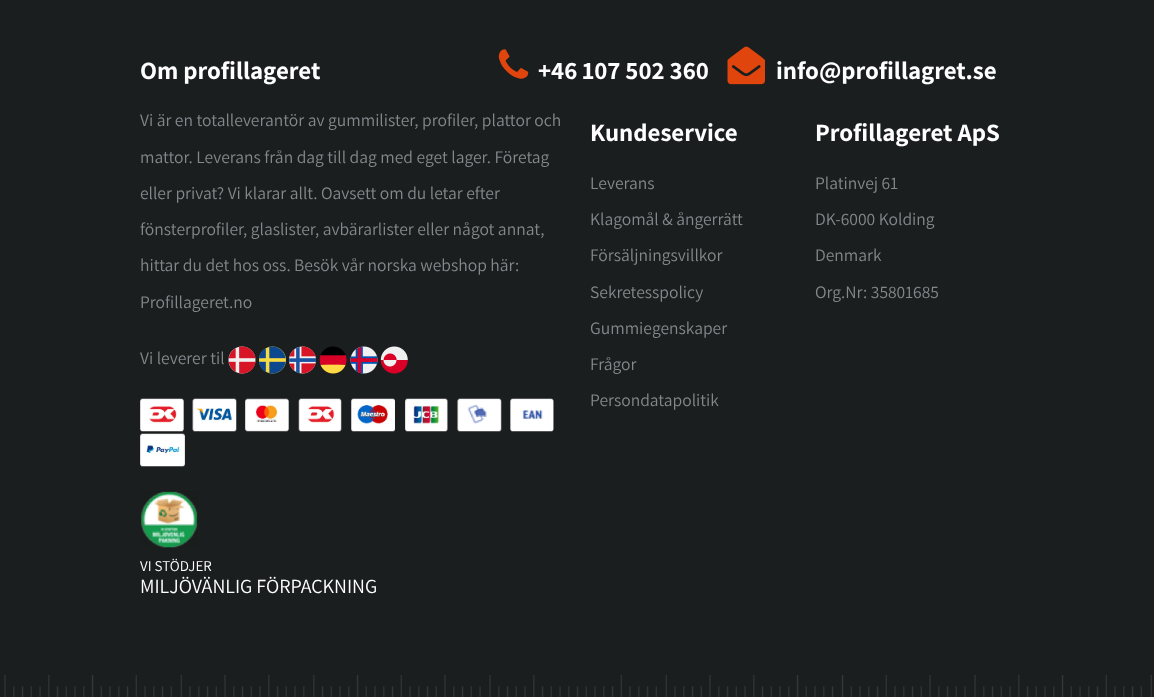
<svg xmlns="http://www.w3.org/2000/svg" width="1154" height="697">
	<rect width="100%" height="100%" fill="#1B1E1F" />
	<text x="140" y="79" font-family="Assistant" font-size="25" font-weight="700" fill="#FFFFFF">Om profillageret</text>
	<g font-family="Assistant" font-size="17.5" fill="#82898C">
		<text x="140" y="126">Vi är en totalleverantör av gummilister, profiler, plattor och</text>
		<text x="140" y="163">mattor. Leverans från dag till dag med eget lager. Företag</text>
		<text x="140" y="199">eller privat? Vi klarar allt. Oavsett om du letar efter</text>
		<text x="140" y="235">fönsterprofiler, glaslister, avbärarlister eller något annat,</text>
		<text x="140" y="271">hittar du det hos oss. Besök vår norska webshop här:</text>
		<text x="140" y="308">Profillageret.no</text>
		<text x="140" y="364">Vi leverer til</text>
	</g>
	<image x="228" y="346" width="180" height="28" href="assets/img1.png" />
	<image x="140" y="398" width="44" height="34" href="assets/img2.png" />
	<image x="192" y="398" width="45" height="34" href="assets/img3.png" />
	<image x="245" y="398" width="44" height="34" href="assets/img4.png" />
	<image x="298" y="398" width="44" height="34" href="assets/img5.png" />
	<image x="351" y="398" width="44" height="34" href="assets/img6.png" />
	<image x="405" y="398" width="43" height="34" href="assets/img7.png" />
	<image x="457" y="398" width="45" height="34" href="assets/img8.png" />
	<image x="510" y="398" width="44" height="34" href="assets/img9.png" />
	<image x="140" y="433" width="45" height="34" href="assets/img10.png" />
	<text x="590" y="141" font-family="Assistant" font-size="25" font-weight="700" fill="#FFFFFF">Kundeservice</text>
	<g font-family="Assistant" font-size="17.5" fill="#82898C">
		<text x="590" y="189">Leverans</text>
		<text x="590" y="225">Klagomål &amp; ångerrätt</text>
		<text x="590" y="261">Försäljningsvillkor</text>
		<text x="590" y="298">Sekretesspolicy</text>
		<text x="590" y="334">Gummiegenskaper</text>
		<text x="590" y="370">Frågor</text>
		<text x="590" y="406">Persondatapolitik</text>
	</g>
	<text x="815" y="141" font-family="Assistant" font-size="25" font-weight="700" fill="#FFFFFF">Profillageret ApS</text>
	<g font-family="Assistant" font-size="17.5" fill="#82898C">
		<text x="815" y="189">Platinvej 61</text>
		<text x="815" y="225">DK-6000 Kolding</text>
		<text x="815" y="261">Denmark</text>
		<text x="815" y="298">Org.Nr: 35801685</text>
	</g>
	<image x="498" y="49" width="31" height="30" href="assets/img11.png" />
	<text x="538" y="79" font-family="Assistant" font-size="25" font-weight="700" fill="#FFFFFF">+46 107 502 360</text>
	<image x="727" y="46" width="38" height="39" href="assets/img12.png" />
	<text x="776" y="79" font-family="Assistant" font-size="25" font-weight="700" fill="#FFFFFF">info@profillagret.se</text>
	<image x="4" y="675" width="1148" height="22" href="assets/img13.png" />
	<image x="140" y="491" width="58" height="57" href="assets/img14.png" />
	<text x="140" y="571" font-family="Assistant" font-size="15" fill="#FFFFFF">VI STÖDJER</text>
	<text x="140" y="593" font-family="Assistant" font-size="20" fill="#FFFFFF">MILJÖVÄNLIG FÖRPACKNING</text>
</svg>
